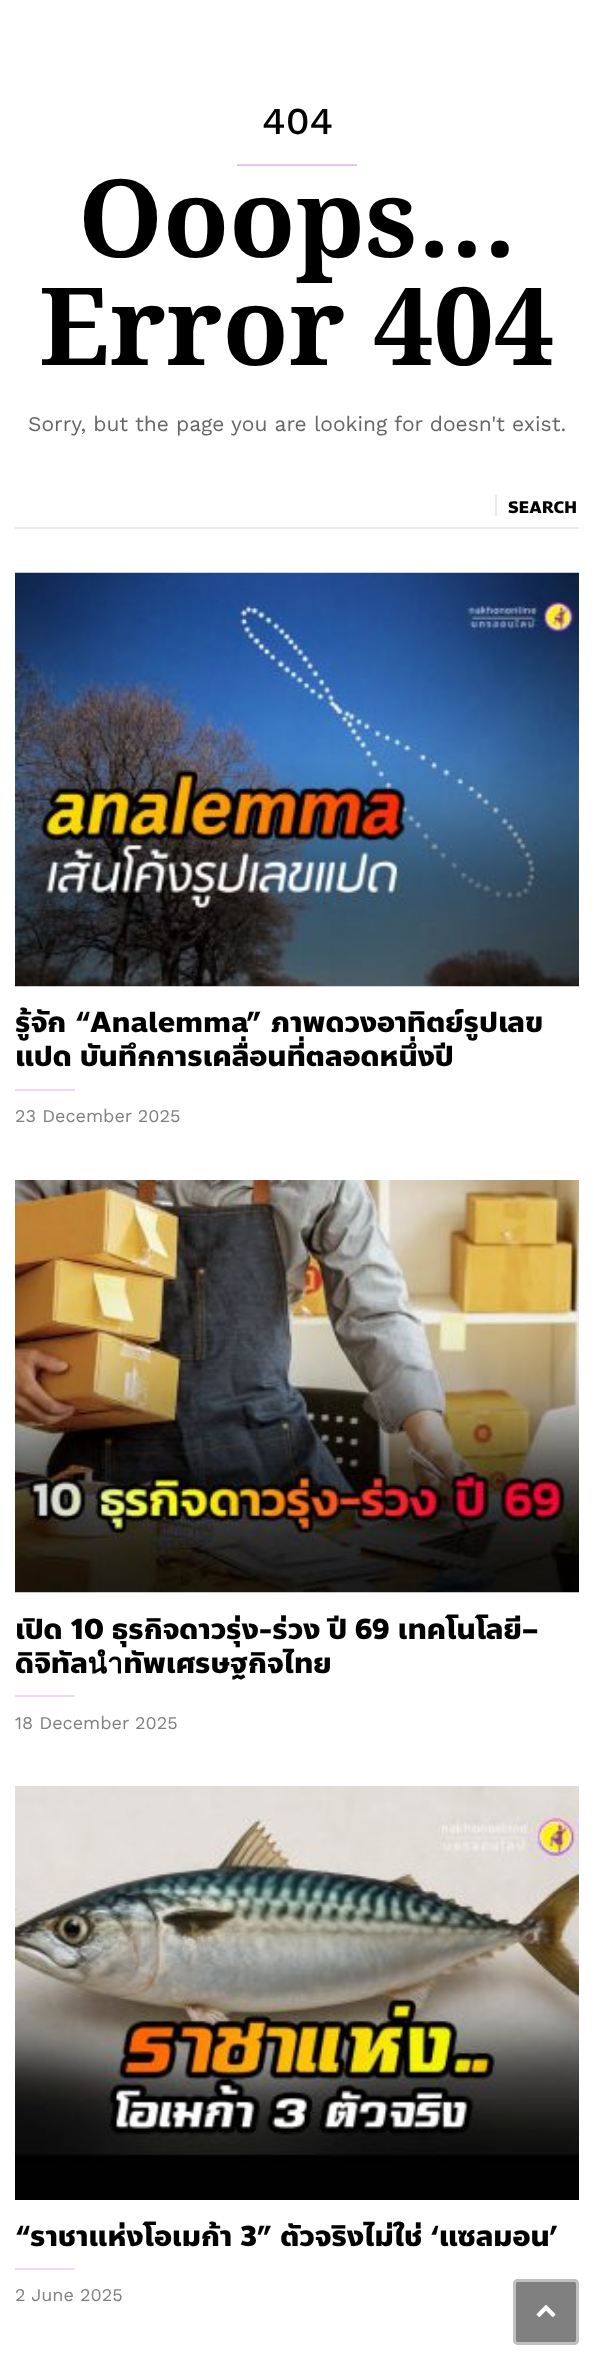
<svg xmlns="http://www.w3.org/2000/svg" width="594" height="2359">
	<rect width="100%" height="100%" fill="#FFFFFF" />
	<text x="262" y="134" font-family="Work Sans" font-size="38" font-weight="500" fill="#000000">404</text>
	<rect x="237" y="164" width="120" height="2" fill="#E5C6F1" />
	<g font-family="Droid Serif" font-size="108" font-weight="700" fill="#000000">
		<text x="78" y="257">Ooops...</text>
		<text x="39" y="365">Error 404</text>
	</g>
	<text x="28" y="431" font-family="Work Sans" font-size="21" fill="#666666">Sorry, but the page you are looking for doesn't exist.</text>
	<rect x="495" y="495" width="2" height="21" fill="#EBEBEB" />
	<text x="508" y="513" font-family="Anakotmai" font-size="16.5" font-weight="700" fill="#000000">SEARCH</text>
	<rect x="15" y="527" width="564" height="2" fill="#EBEBEB" />
	<image x="15" y="572" width="564" height="415" href="assets/img1.png" />
	<g font-family="Anakotmai" font-size="28.5" font-weight="700" fill="#000000">
		<text x="15" y="1032" word-spacing="1">รู้จัก “Analemma” ภาพดวงอาทิตย์รูปเลข</text>
		<text x="15" y="1066">แปด บันทึกการเคลื่อนที่ตลอดหนึ่งปี</text>
	</g>
	<rect x="15" y="1089" width="60" height="2" fill="#EED9F6" />
	<text x="15" y="1122" font-family="Work Sans" font-size="18" fill="#808080">23 December 2025</text>
	<image x="15" y="1180" width="564" height="413" href="assets/img2.png" />
	<g font-family="Anakotmai" font-size="28.5" font-weight="700" fill="#000000">
		<text x="15" y="1639">เปิด 10 ธุรกิจดาวรุ่ง-ร่วง ปี 69 เทคโนโลยี–</text>
		<text x="15" y="1673">ดิจิทัลนำทัพเศรษฐกิจไทย</text>
	</g>
	<rect x="15" y="1695" width="60" height="2" fill="#EED9F6" />
	<text x="15" y="1729" font-family="Work Sans" font-size="18" fill="#808080">18 December 2025</text>
	<image x="15" y="1786" width="564" height="414" href="assets/img3.png" />
	<text x="15" y="2246" font-family="Anakotmai" font-size="28.5" font-weight="700" fill="#000000">“ราชาแห่งโอเมก้า 3” ตัวจริงไม่ใช่ ‘แซลมอน’</text>
	<rect x="15" y="2268" width="60" height="2" fill="#EED9F6" />
	<text x="15" y="2301" font-family="Work Sans" font-size="18" fill="#808080">2 June 2025</text>
	<rect x="513" y="2279" width="66" height="66" rx="5" fill="#808080" />
	<rect x="514.5" y="2280.5" width="63" height="63" rx="3.5" fill="none" stroke="#FFFFFF" stroke-opacity="0.5" stroke-width="3" />
	<image x="536" y="2305" width="20" height="12" href="assets/img4.png" />
</svg>
